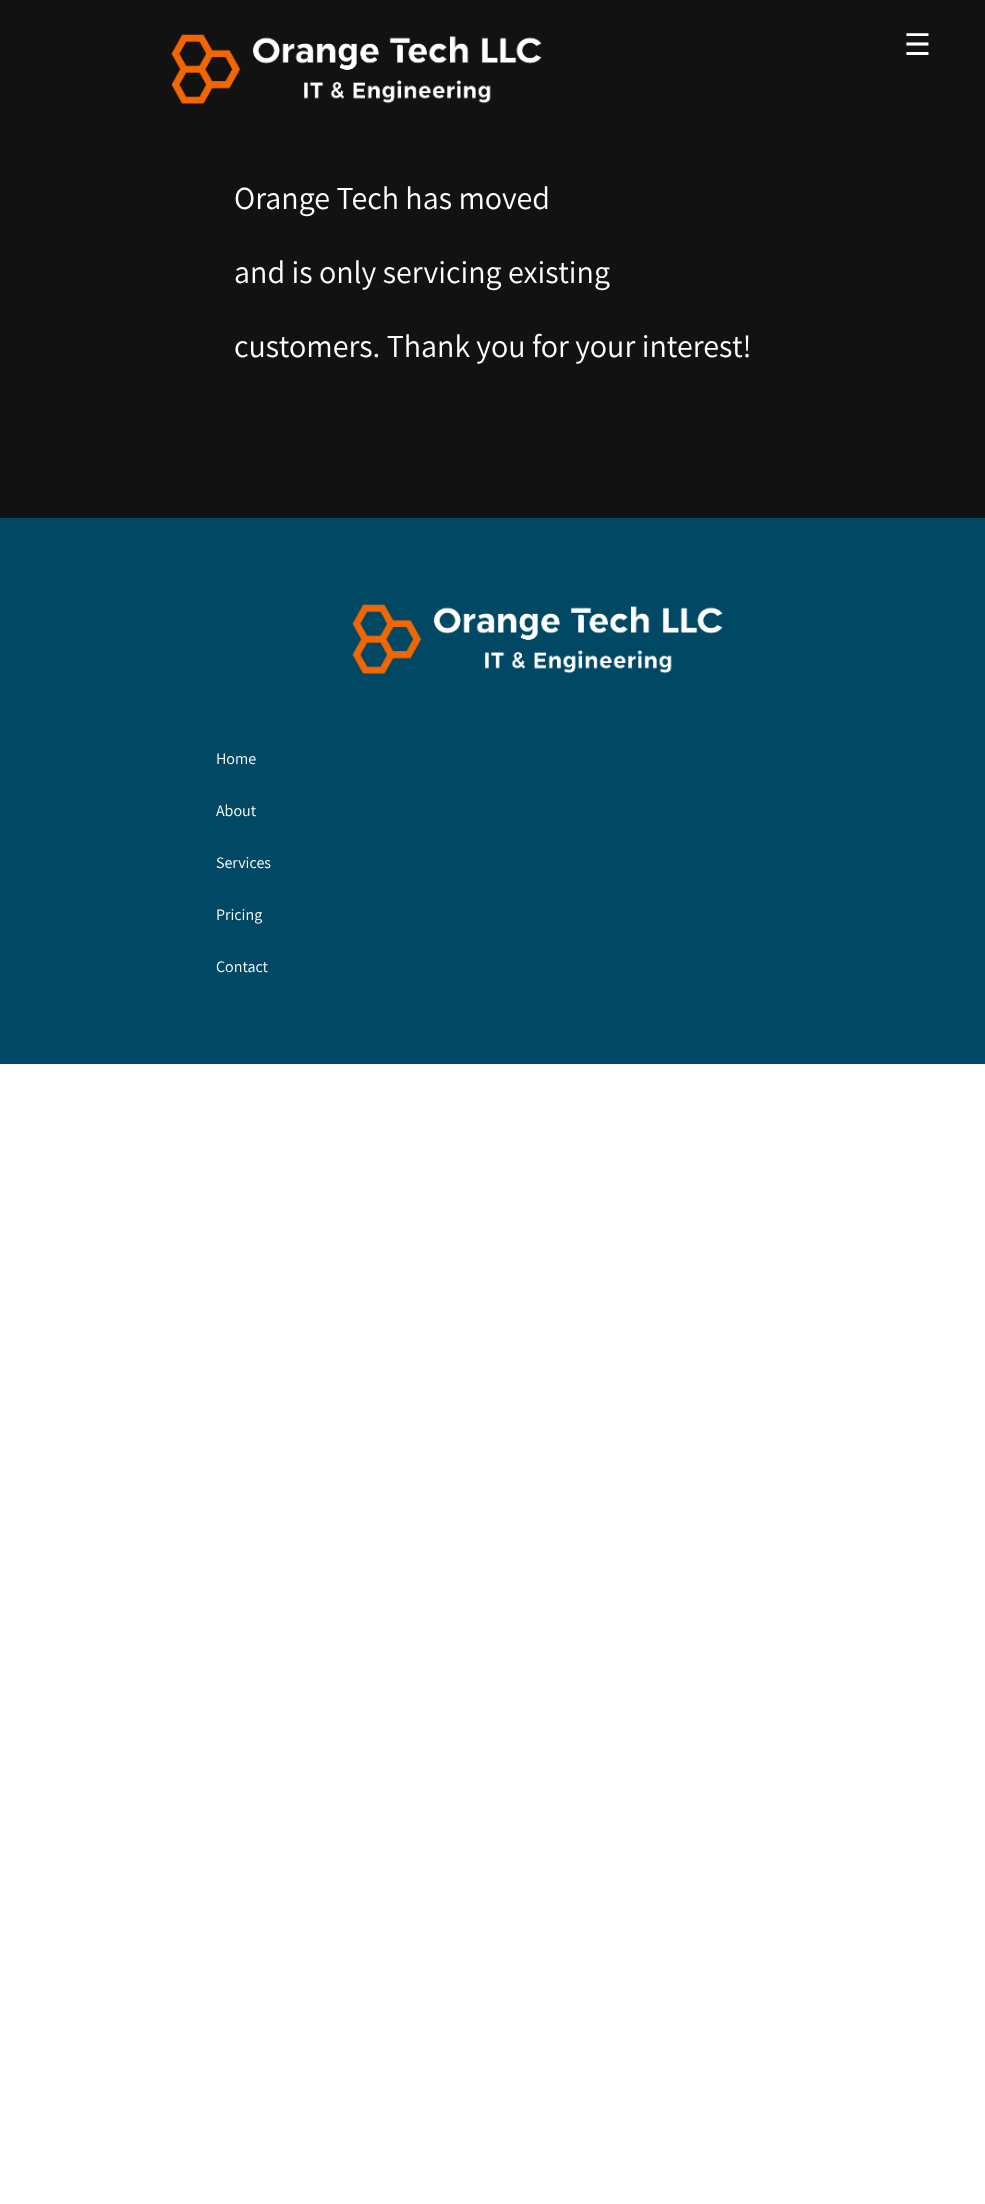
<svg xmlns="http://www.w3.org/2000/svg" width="985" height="2204">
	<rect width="100%" height="100%" fill="#FFFFFF" />
	<rect x="0" y="0" width="985" height="518" fill="#121212" />
	<image x="171" y="34" width="371" height="71" href="assets/img1.png" />
	<text x="904" y="55" font-family="DejaVu Sans" font-size="30" fill="#FFFFFF">☰</text>
	<g font-family="Assistant" font-size="32" fill="#FFFFFF">
		<text x="234" y="209">Orange Tech has moved</text>
		<text x="234" y="283">and is only servicing existing</text>
		<text x="234" y="357">customers. Thank you for your interest!</text>
	</g>
	<rect x="0" y="518" width="985" height="546" fill="#004863" />
	<image x="352" y="604" width="371" height="71" href="assets/img2.png" />
	<g font-family="Assistant" font-size="16" fill="#FFFFFF">
		<text x="216" y="764">Home</text>
		<text x="216" y="816">About</text>
		<text x="216" y="868">Services</text>
		<text x="216" y="920">Pricing</text>
		<text x="216" y="972">Contact</text>
	</g>
</svg>
